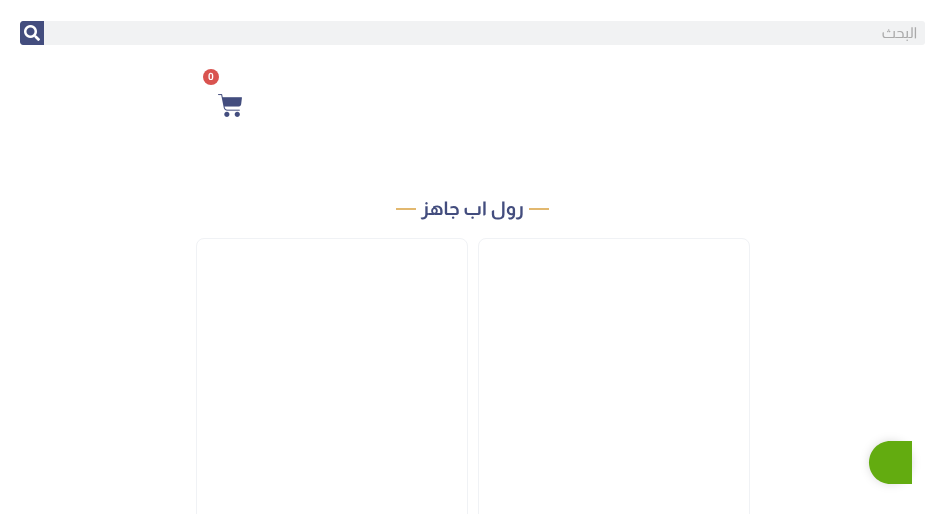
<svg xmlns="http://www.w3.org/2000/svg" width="945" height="514">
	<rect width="100%" height="100%" fill="#FFFFFF" />
	<rect x="20" y="21" width="905" height="24" rx="3" fill="#F1F2F3" />
	<text x="917" y="38" font-family="Almarai" font-size="15" direction="rtl" fill="#AAAAAA">البحث</text>
	<path d="M23 21H44V45H23C21.5 45 20 43.5 20 42V24C20 22.5 21.5 21 23 21Z" fill="#434D7E" />
	<image x="24" y="25" width="16" height="16" href="assets/img1.png" />
	<circle cx="211" cy="77" r="8" fill="#D9534F" />
	<text x="208" y="80" font-family="Roboto" font-size="10" font-weight="600" fill="#FFFFFF">0</text>
	<image x="218" y="94" width="24" height="23" href="assets/img2.png" />
	<rect x="529" y="208" width="20" height="2" fill="#E2B86F" />
	<text x="524" y="215" font-family="Almarai" font-size="19" font-weight="700" direction="rtl" fill="#434D7E">رول اب جاهز</text>
	<rect x="396" y="208" width="20" height="2" fill="#E2B86F" />
	<rect x="478.5" y="238.5" width="271" height="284" rx="7.5" fill="none" stroke="#F0F2F5" />
	<rect x="196.5" y="238.5" width="271" height="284" rx="7.5" fill="none" stroke="#F0F2F5" />
	<rect x="869" y="441" width="43" height="43" rx="21.5" fill="#000000" fill-opacity="0.15" filter="blur(5px)" />
	<path d="M890.5 441H912V484H890.5C878.5 484 869 474.5 869 462.5C869 450.5 878.5 441 890.5 441Z" fill="#63AC10" />
</svg>
